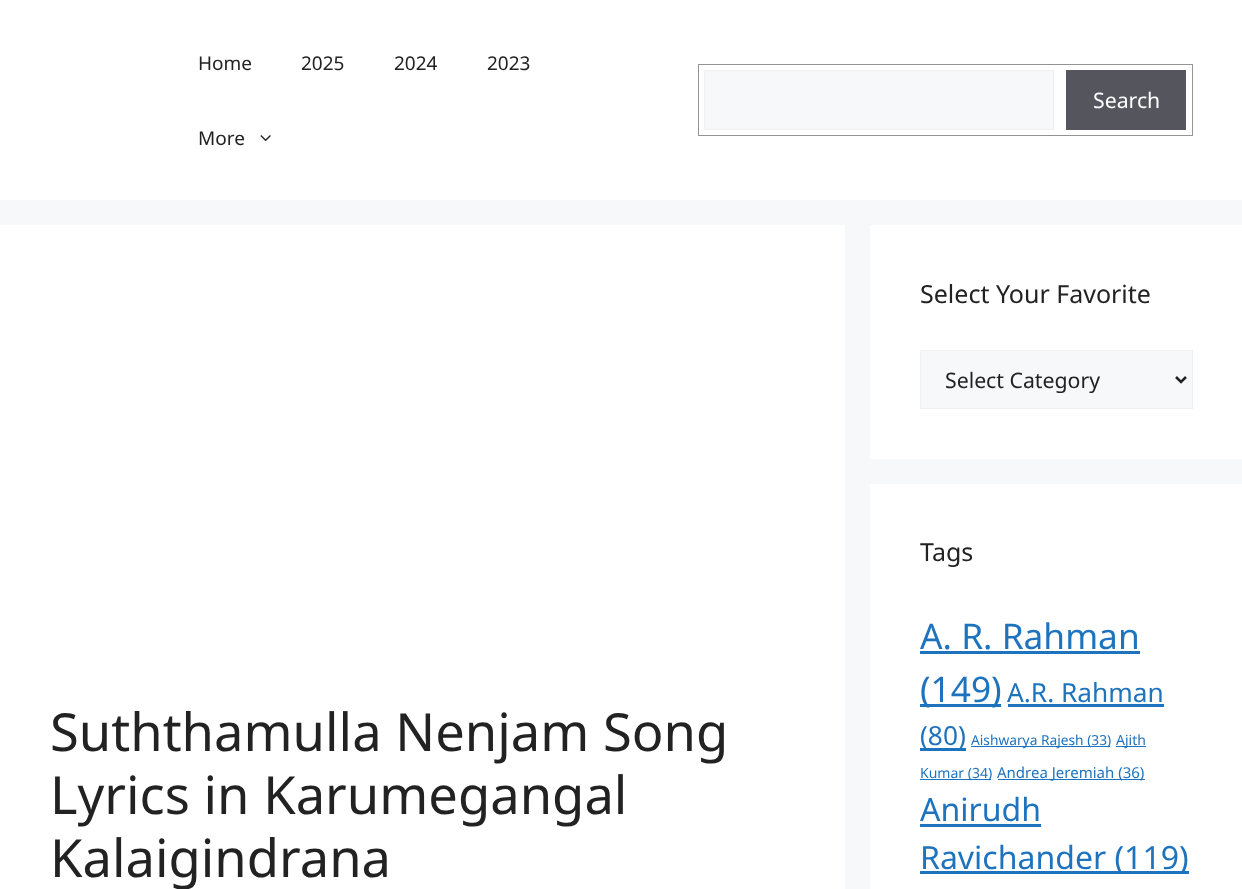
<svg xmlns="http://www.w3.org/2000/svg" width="1242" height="889">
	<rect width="100%" height="100%" fill="#F7F8F9" />
	<rect x="0" y="0" width="1242" height="200" fill="#FFFFFF" />
	<g font-family="Noto Sans" font-size="19" fill="#222222">
		<text x="198" y="70">Home</text>
		<text x="301" y="70">2025</text>
		<text x="394" y="70">2024</text>
		<text x="487" y="70">2023</text>
		<text x="198" y="145">More</text>
	</g>
	<image x="260" y="135" width="11" height="7" href="assets/img1.png" />
	<rect x="698.5" y="64.5" width="494" height="71" fill="none" stroke="#949494" />
	<rect x="704.5" y="70.5" width="349" height="59" fill="#F7F8F9" stroke="#F0F0F0" />
	<rect x="1066" y="70" width="120" height="60" fill="#55555E" />
	<text x="1093" y="108" font-family="Noto Sans" font-size="21.25" fill="#FFFFFF">Search</text>
	<rect x="0" y="225" width="845" height="664" fill="#FFFFFF" />
	<g font-family="Noto Sans" font-size="52.5" fill="#222222">
		<text x="50" y="751">Suththamulla Nenjam Song</text>
		<text x="50" y="814">Lyrics in Karumegangal</text>
		<text x="50" y="877">Kalaigindrana</text>
	</g>
	<rect x="870" y="225" width="372" height="234" fill="#FFFFFF" />
	<text x="920" y="303" font-family="Noto Sans" font-size="25" fill="#222222">Select Your Favorite</text>
	<rect x="920.5" y="350.5" width="272" height="58" fill="#F7F8F9" stroke="#F0F0F0" />
	<path d="M1176 377L1181 382L1186 377" fill="none" stroke="#222222" stroke-width="2.5" />
	<text x="945" y="388" font-family="Noto Sans" font-size="21.25" fill="#222222">Select Category</text>
	<rect x="870" y="484" width="372" height="405" fill="#FFFFFF" />
	<text x="920" y="561" font-family="Noto Sans" font-size="25" fill="#222222">Tags</text>
	<text x="920" y="649" font-family="Noto Sans" font-size="35.25" fill="#1E73BE">A. R. Rahman</text>
	<rect x="920" y="651" width="220" height="3" fill="#1E73BE" />
	<rect x="920" y="704" width="81" height="3" fill="#1E73BE" />
	<text x="920" y="702" font-family="Noto Sans" font-size="35.25" fill="#1E73BE">(149)</text>
	<text x="1007" y="702" font-family="Noto Sans" font-size="26.25" fill="#1E73BE">A.R. Rahman</text>
	<rect x="1008" y="704" width="156" height="3" fill="#1E73BE" />
	<rect x="920" y="748" width="46" height="3" fill="#1E73BE" />
	<text x="920" y="745" font-family="Noto Sans" font-size="26.25" fill="#1E73BE">(80)</text>
	<rect x="971" y="746" width="139" height="1" fill="#1E73BE" />
	<text x="971" y="745" font-family="Noto Sans" font-size="13.75" fill="#1E73BE">Aishwarya Rajesh (33)</text>
	<rect x="1116" y="746" width="30" height="1" fill="#1E73BE" />
	<text x="1116" y="745" font-family="Noto Sans" font-size="14" fill="#1E73BE">Ajith</text>
	<rect x="920" y="779" width="71" height="1" fill="#1E73BE" />
	<text x="920" y="778" font-family="Noto Sans" font-size="14" fill="#1E73BE">Kumar (34)</text>
	<rect x="998" y="779" width="147" height="1" fill="#1E73BE" />
	<text x="997" y="778" font-family="Noto Sans" font-size="15" fill="#1E73BE">Andrea Jeremiah (36)</text>
	<text x="920" y="821" font-family="Noto Sans" font-size="32" fill="#1E73BE">Anirudh</text>
	<rect x="920" y="824" width="121" height="3" fill="#1E73BE" />
	<rect x="920" y="871" width="269" height="3" fill="#1E73BE" />
	<text x="920" y="869" font-family="Noto Sans" font-size="32" fill="#1E73BE">Ravichander (119)</text>
</svg>
